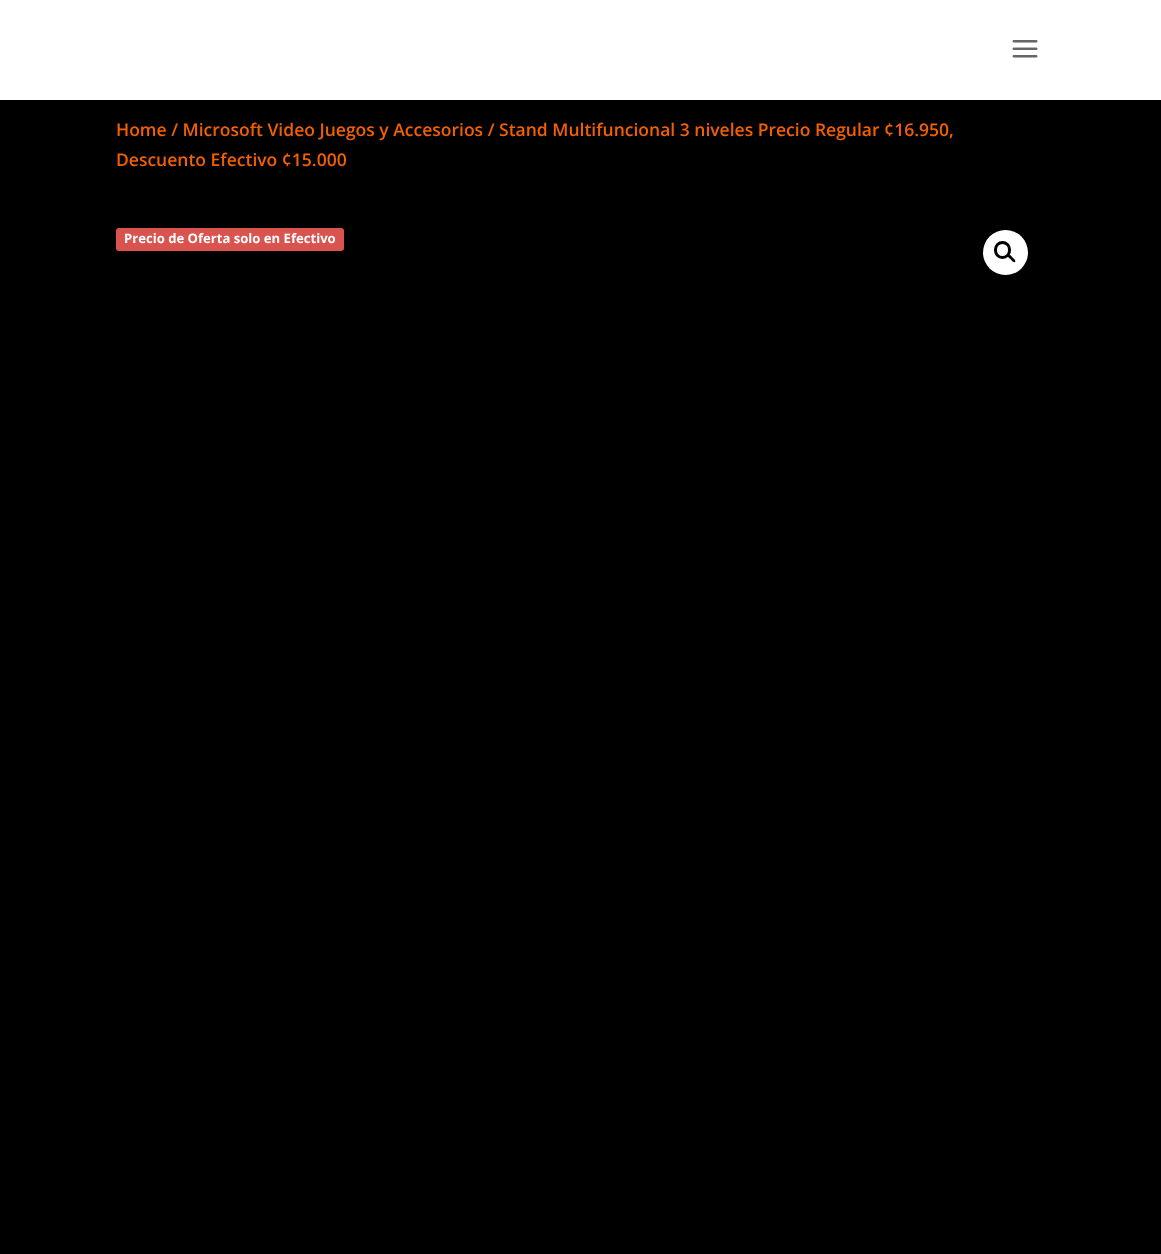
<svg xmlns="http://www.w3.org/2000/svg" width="1161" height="1254">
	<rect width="100%" height="100%" fill="#000000" />
	<rect x="0" y="0" width="1161" height="100" fill="#FFFFFF" />
	<image x="1012" y="40" width="26" height="18" href="assets/img1.png" />
	<g font-family="Open Sans" font-size="17.5" font-weight="600" fill="#F26000">
		<text x="116" y="136">Home / Microsoft Video Juegos y Accesorios / Stand Multifuncional 3 niveles Precio Regular ¢16.950,</text>
		<text x="116" y="166">Descuento Efectivo ¢15.000</text>
	</g>
	<rect x="116" y="228" width="228" height="23" rx="3" fill="#D9534F" />
	<text x="124" y="243" font-family="Open Sans" font-size="13.1" font-weight="700" fill="#FFFFFF">Precio de Oferta solo en Efectivo</text>
	<circle cx="1005.5" cy="252.5" r="22.5" fill="#FFFFFF" />
	<rect x="995.5" y="242.5" width="14" height="15" rx="7" fill="none" stroke="#000000" stroke-width="3" />
	<path d="M1008 254.5C1009.5 253.5 1011.5 256.5 1012.5 257.5C1013 258 1016.5 260.5 1015 262C1013.5 263 1011 260 1010.5 259C1009.5 258.5 1006.5 256 1008 254.5Z" fill="#000000" />
</svg>
